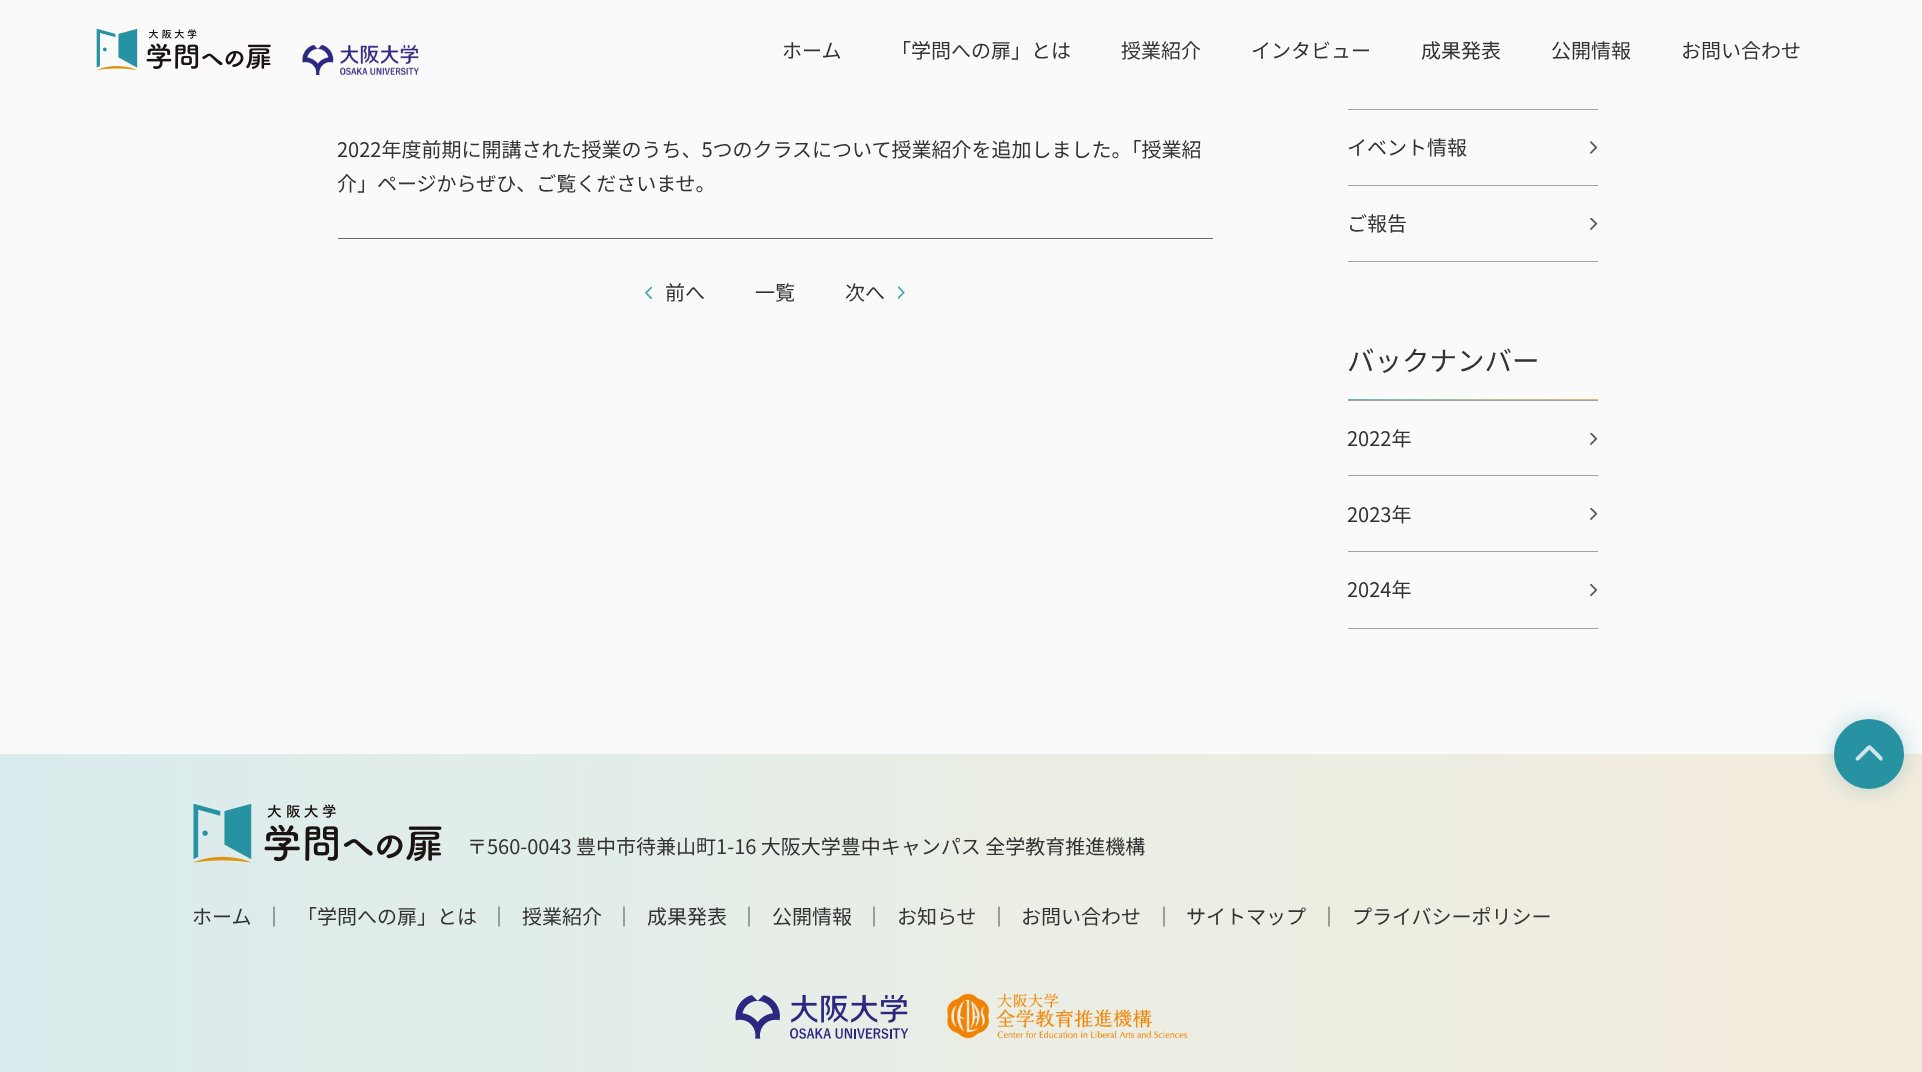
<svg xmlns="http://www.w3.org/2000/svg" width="1922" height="1072">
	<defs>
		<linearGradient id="g1" gradientUnits="userSpaceOnUse" x1="1348" y1="399" x2="1598" y2="399"><stop offset="0" stop-color="#67B2BD" /><stop offset="0.26" stop-color="#8BC0AD" /><stop offset="0.52" stop-color="#ADC296" /><stop offset="0.78" stop-color="#CABD85" /><stop offset="1" stop-color="#E0B975" /></linearGradient>
		<linearGradient id="g2" gradientUnits="userSpaceOnUse" x1="0" y1="984" x2="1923" y2="984"><stop offset="0" stop-color="#DAEBED" /><stop offset="0.26" stop-color="#E1EDE9" /><stop offset="0.52" stop-color="#EAEEE5" /><stop offset="0.78" stop-color="#EFEDE1" /><stop offset="1" stop-color="#F4ECDD" /></linearGradient>
	</defs>
	<rect width="100%" height="100%" fill="#FAFAFA" />
	<image x="96" y="29" width="175" height="41" href="assets/img1.png" />
	<image x="302" y="45" width="117" height="30" href="assets/img2.png" />
	<g font-family="Noto Sans CJK JP" font-size="20" fill="#333333">
		<text x="782" y="58">ホーム</text>
		<text x="891" y="58">「学問への扉」とは</text>
		<text x="1121" y="58">授業紹介</text>
		<text x="1251" y="58">インタビュー</text>
		<text x="1421" y="58">成果発表</text>
		<text x="1551" y="58">公開情報</text>
		<text x="1681" y="58">お問い合わせ</text>
		<text x="337" y="157">2022年度前期に開講された授業のうち、5つのクラスについて授業紹介を追加しました。「授業紹</text>
		<text x="337" y="191">介」ページからぜひ、ご覧くださいませ。</text>
	</g>
	<rect x="338" y="238" width="875" height="1" fill="#6A6A6A" />
	<image x="645" y="286" width="8" height="13" href="assets/img3.png" />
	<g font-family="Noto Sans CJK JP" font-size="20" fill="#333333">
		<text x="665" y="300">前へ</text>
		<text x="755" y="300">一覧</text>
		<text x="845" y="300">次へ</text>
	</g>
	<image x="898" y="286" width="7" height="13" href="assets/img4.png" />
	<rect x="1348" y="109" width="250" height="1" fill="#A3A3A3" />
	<rect x="1348" y="185" width="250" height="1" fill="#A3A3A3" />
	<text x="1347" y="155" font-family="Noto Sans CJK JP" font-size="20" fill="#333333">イベント情報</text>
	<image x="1590" y="141" width="8" height="13" href="assets/img5.png" />
	<rect x="1348" y="261" width="250" height="1" fill="#A3A3A3" />
	<text x="1347" y="231" font-family="Noto Sans CJK JP" font-size="20" fill="#333333">ご報告</text>
	<image x="1590" y="218" width="8" height="12" href="assets/img6.png" />
	<rect x="1348" y="399" width="250" height="1" fill="url(#g1)" />
	<text x="1347" y="371" font-family="Noto Sans CJK JP" font-size="27.5" fill="#333333">バックナンバー</text>
	<rect x="1348" y="400" width="250" height="1" fill="#A3A3A3" />
	<rect x="1348" y="475" width="250" height="1" fill="#A3A3A3" />
	<text x="1347" y="446" font-family="Noto Sans CJK JP" font-size="20" fill="#333333">2022年</text>
	<image x="1590" y="433" width="8" height="12" href="assets/img6.png" />
	<rect x="1348" y="551" width="250" height="1" fill="#A3A3A3" />
	<text x="1347" y="522" font-family="Noto Sans CJK JP" font-size="20" fill="#333333">2023年</text>
	<image x="1590" y="508" width="8" height="12" href="assets/img6.png" />
	<rect x="1348" y="628" width="250" height="1" fill="#A3A3A3" />
	<text x="1347" y="597" font-family="Noto Sans CJK JP" font-size="20" fill="#333333">2024年</text>
	<image x="1590" y="584" width="7" height="12" href="assets/img7.png" />
	<rect x="0" y="754" width="1922" height="318" fill="url(#g2)" />
	<rect x="1834" y="719" width="70" height="70" rx="35" fill="#2792A2" fill-opacity="0.3" filter="blur(12.5px)" />
	<circle cx="1869" cy="754" r="33.5" fill="#2792A2" stroke="#2792A2" stroke-width="3" />
	<image x="1855" y="745" width="28" height="16" href="assets/img8.png" />
	<image x="193" y="804" width="249" height="59" href="assets/img9.png" />
	<g font-family="Noto Sans CJK JP" font-size="20" fill="#333333">
		<text x="467" y="854">〒560-0043 豊中市待兼山町1-16 大阪大学豊中キャンパス 全学教育推進機構</text>
		<text x="192" y="924">ホーム</text>
		<text x="264" y="924">｜</text>
		<text x="297" y="924">「学問への扉」とは</text>
		<text x="489" y="924">｜</text>
		<text x="522" y="924">授業紹介</text>
		<text x="614" y="924">｜</text>
		<text x="647" y="924">成果発表</text>
		<text x="739" y="924">｜</text>
		<text x="772" y="924">公開情報</text>
		<text x="864" y="924">｜</text>
		<text x="897" y="924">お知らせ</text>
		<text x="989" y="924">｜</text>
		<text x="1021" y="924">お問い合わせ</text>
		<text x="1154" y="924">｜</text>
		<text x="1186" y="924">サイトマップ</text>
		<text x="1319" y="924">｜</text>
		<text x="1352" y="924">プライバシーポリシー</text>
	</g>
	<image x="735" y="995" width="174" height="44" href="assets/img10.png" />
	<image x="947" y="993" width="241" height="46" href="assets/img11.png" />
</svg>
